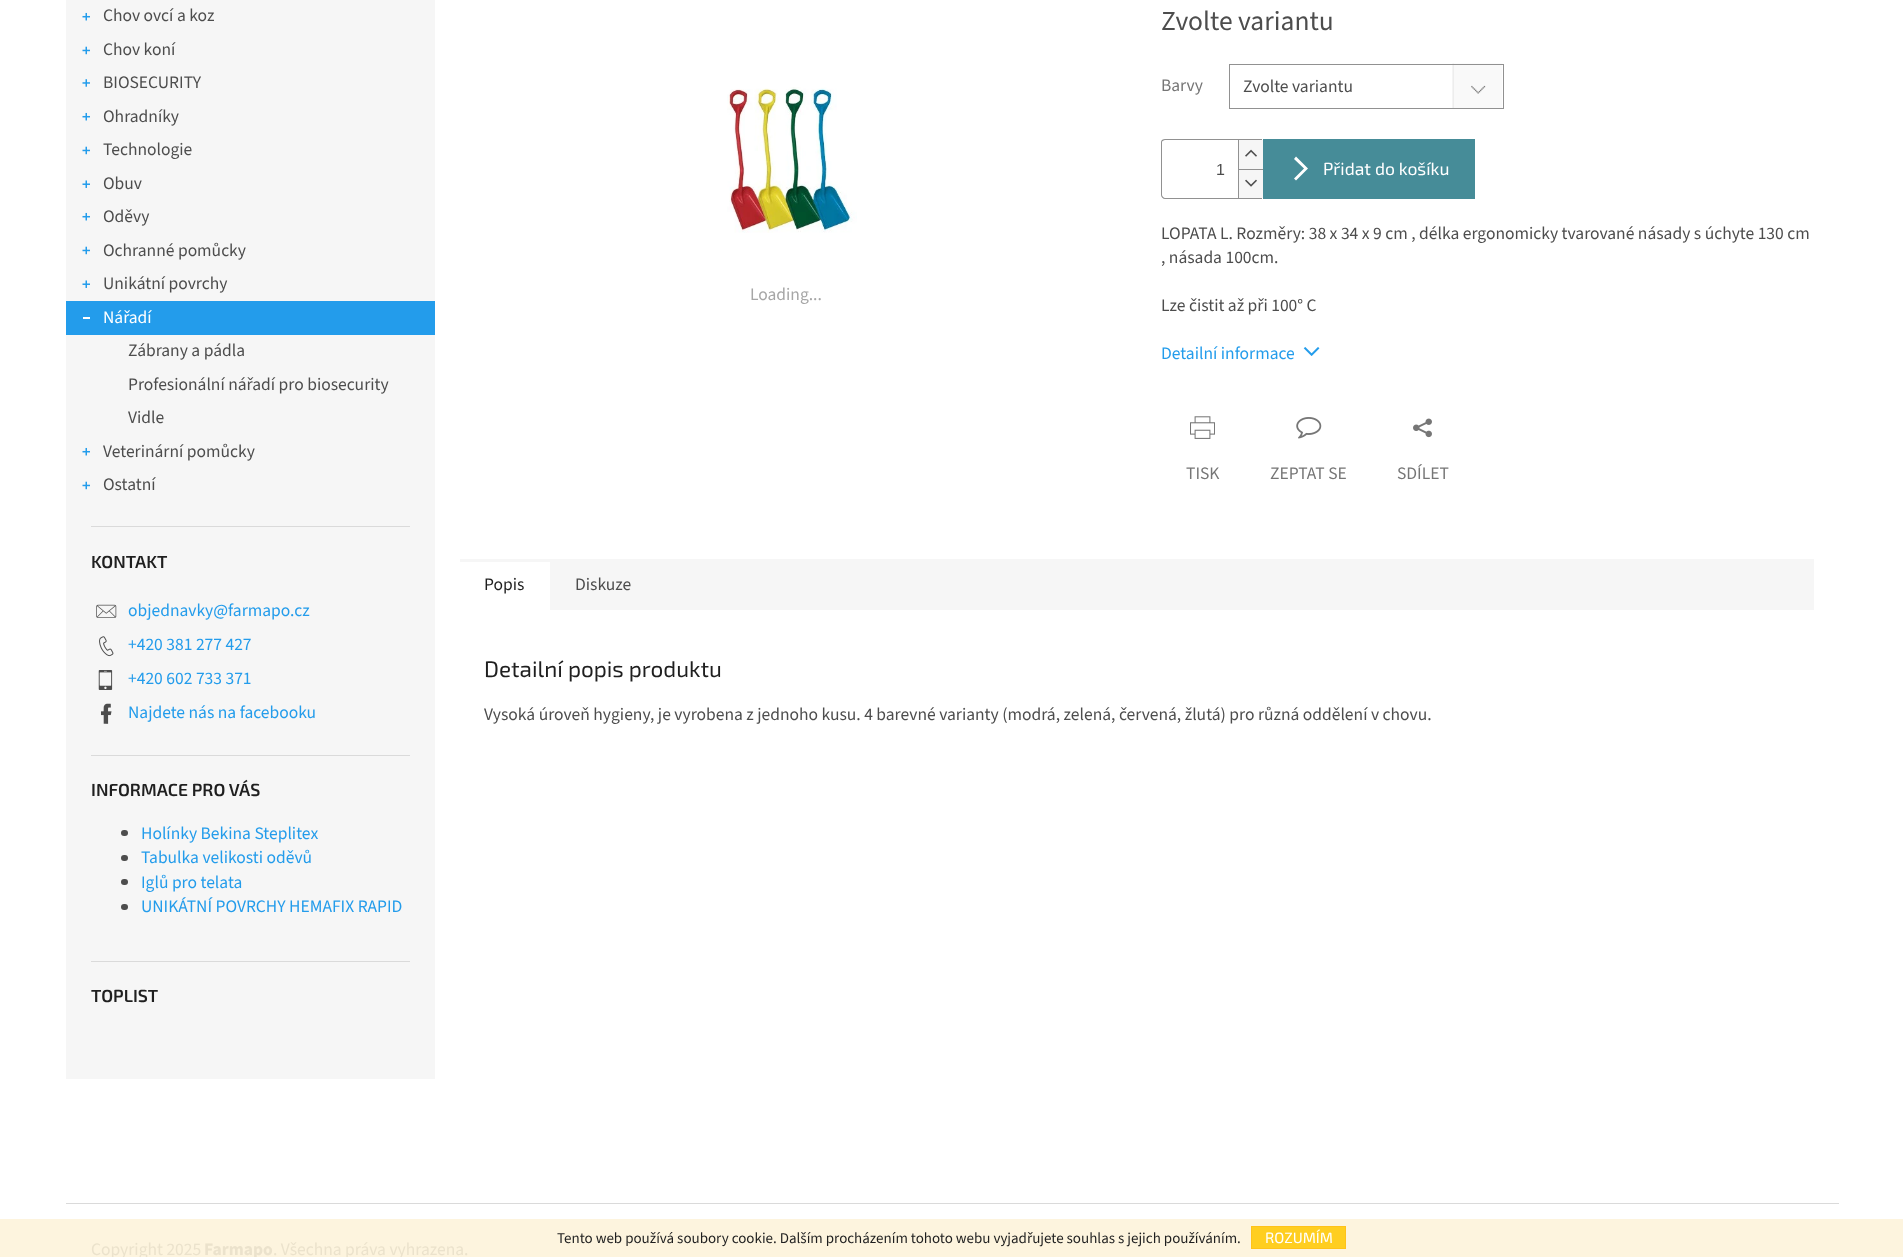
<svg xmlns="http://www.w3.org/2000/svg" width="1903" height="1257">
	<rect width="100%" height="100%" fill="#FFFFFF" />
	<rect x="0" y="1219" width="1903" height="38" fill="#FDF4DE" />
	<rect x="66" y="0" width="369" height="1079" fill="#F6F6F6" />
	<rect x="91" y="526" width="319" height="1" fill="#DADADA" />
	<image x="82" y="12" width="8" height="9" href="assets/img1.png" />
	<text x="103" y="21" font-family="'Source Sans 3'" font-size="17.5" fill="#4D4D4D">Chov ovcí a koz</text>
	<image x="82" y="46" width="8" height="9" href="assets/img2.png" />
	<text x="103" y="55" font-family="'Source Sans 3'" font-size="17.5" fill="#4D4D4D">Chov koní</text>
	<image x="82" y="79" width="8" height="8" href="assets/img3.png" />
	<text x="103" y="88" font-family="'Source Sans 3'" font-size="17.5" fill="#4D4D4D">BIOSECURITY</text>
	<image x="82" y="112" width="8" height="9" href="assets/img1.png" />
	<text x="103" y="122" font-family="'Source Sans 3'" font-size="17.5" fill="#4D4D4D">Ohradníky</text>
	<image x="82" y="146" width="8" height="9" href="assets/img2.png" />
	<text x="103" y="155" font-family="'Source Sans 3'" font-size="17.5" fill="#4D4D4D">Technologie</text>
	<image x="82" y="180" width="8" height="8" href="assets/img4.png" />
	<text x="103" y="189" font-family="'Source Sans 3'" font-size="17.5" fill="#4D4D4D">Obuv</text>
	<image x="82" y="212" width="8" height="9" href="assets/img1.png" />
	<text x="103" y="222" font-family="'Source Sans 3'" font-size="17.5" fill="#4D4D4D">Oděvy</text>
	<image x="82" y="246" width="8" height="9" href="assets/img2.png" />
	<text x="103" y="256" font-family="'Source Sans 3'" font-size="17.5" fill="#4D4D4D">Ochranné pomůcky</text>
	<image x="82" y="280" width="8" height="8" href="assets/img4.png" />
	<text x="103" y="289" font-family="'Source Sans 3'" font-size="17.5" fill="#4D4D4D">Unikátní povrchy</text>
	<rect x="66" y="301" width="369" height="34" fill="#239CEB" />
	<rect x="83" y="317" width="7" height="2" fill="#FFFFFF" />
	<text x="103" y="323" font-family="'Source Sans 3'" font-size="17.5" fill="#FFFFFF">Nářadí</text>
	<g font-family="'Source Sans 3'" font-size="17.5" fill="#4D4D4D">
		<text x="128" y="356">Zábrany a pádla</text>
		<text x="128" y="390">Profesionální nářadí pro biosecurity</text>
		<text x="128" y="423">Vidle</text>
	</g>
	<image x="82" y="447" width="8" height="9" href="assets/img1.png" />
	<text x="103" y="457" font-family="'Source Sans 3'" font-size="17.5" fill="#4D4D4D">Veterinární pomůcky</text>
	<image x="82" y="481" width="8" height="9" href="assets/img2.png" />
	<text x="103" y="490" font-family="'Source Sans 3'" font-size="17.5" fill="#4D4D4D">Ostatní</text>
	<rect x="91" y="755" width="319" height="1" fill="#DADADA" />
	<text x="91" y="568" font-family="'Exo 2'" font-size="17.5" font-weight="600" fill="#1F1F1F">KONTAKT</text>
	<image x="96" y="604" width="21" height="14" href="assets/img5.png" />
	<text x="128" y="616" font-family="'Source Sans 3'" font-size="17.5" fill="#239CEB">objednavky@farmapo.cz</text>
	<image x="99" y="636" width="15" height="21" href="assets/img6.png" />
	<text x="128" y="650" font-family="'Source Sans 3'" font-size="17.5" fill="#239CEB">+420 381 277 427</text>
	<image x="98" y="670" width="15" height="20" href="assets/img7.png" />
	<text x="128" y="684" font-family="'Source Sans 3'" font-size="17.5" fill="#239CEB">+420 602 733 371</text>
	<image x="101" y="703" width="11" height="21" href="assets/img8.png" />
	<text x="128" y="718" font-family="'Source Sans 3'" font-size="17.5" fill="#239CEB">Najdete nás na facebooku</text>
	<rect x="91" y="961" width="319" height="1" fill="#DADADA" />
	<text x="91" y="796" font-family="'Exo 2'" font-size="17.5" font-weight="600" fill="#1F1F1F">INFORMACE PRO VÁS</text>
	<rect x="121" y="830" width="7" height="6" rx="3" fill="#4D4D4D" />
	<text x="141" y="839" font-family="'Source Sans 3'" font-size="17.5" fill="#239CEB">Holínky Bekina Steplitex</text>
	<rect x="121" y="855" width="7" height="6" rx="3" fill="#4D4D4D" />
	<text x="141" y="863" font-family="'Source Sans 3'" font-size="17.5" fill="#239CEB">Tabulka velikosti oděvů</text>
	<rect x="121" y="879" width="7" height="6" rx="3" fill="#4D4D4D" />
	<text x="141" y="888" font-family="'Source Sans 3'" font-size="17.5" fill="#239CEB">Iglů pro telata</text>
	<rect x="121" y="904" width="7" height="6" rx="3" fill="#4D4D4D" />
	<text x="141" y="912" font-family="'Source Sans 3'" font-size="17.5" fill="#239CEB">UNIKÁTNÍ POVRCHY HEMAFIX RAPID</text>
	<text x="91" y="1002" font-family="'Exo 2'" font-size="17.5" font-weight="600" fill="#1F1F1F">TOPLIST</text>
	<image x="727" y="87" width="130" height="146" href="assets/img9.png" />
	<text x="750" y="300" font-family="'Source Sans 3'" font-size="17.5" fill="#A6A6A6">Loading...</text>
	<text x="1161" y="30" font-family="'Source Sans 3'" font-size="27.5" fill="#4D4D4D">Zvolte variantu</text>
	<text x="1161" y="91" font-family="'Source Sans 3'" font-size="17.5" fill="#767676">Barvy</text>
	<image x="1452" y="63" width="50" height="45" href="assets/img10.png" />
	<rect x="1229.5" y="64.5" width="274" height="44" fill="none" stroke="#919191" />
	<text x="1243" y="92" font-family="'Source Sans 3'" font-size="17.5" fill="#4D4D4D">Zvolte variantu</text>
	<path d="M1165 139H1262V199H1165C1163 199 1161 197 1161 195V142C1161 140 1163 139 1165 139ZM1165 140H1262V198H1165C1164 198 1162 196 1162 195V142C1162 141 1164 140 1165 140Z" fill="#919191" fill-rule="evenodd" />
	<text x="1216" y="175" font-family="Liberation Sans" font-size="16" fill="#4D4D4D">1</text>
	<rect x="1239" y="140" width="24" height="29" fill="#F6F6F6" />
	<rect x="1238" y="140" width="1" height="29" fill="#919191" />
	<image x="1245" y="149" width="12" height="8" href="assets/img11.png" />
	<rect x="1239" y="170" width="24" height="28" fill="#F6F6F6" />
	<rect x="1238" y="169" width="25" height="1" fill="#919191" />
	<rect x="1238" y="169" width="1" height="29" fill="#919191" />
	<image x="1245" y="179" width="12" height="8" href="assets/img12.png" />
	<rect x="1263" y="139" width="212" height="60" fill="#468C98" />
	<path d="M1296 180.5L1294 178.5L1304 168.5L1294 159L1296 156.5L1308 168.5Z" fill="#FFFFFF" />
	<text x="1323" y="175" font-family="'Exo 2'" font-size="17.5" fill="#FFFFFF">Přidat do košíku</text>
	<g font-family="'Source Sans 3'" font-size="17.5" fill="#4D4D4D">
		<text x="1161" y="239">LOPATA L. Rozměry: 38 x 34 x 9 cm , délka ergonomicky tvarované násady s úchyte 130 cm</text>
		<text x="1161" y="263">, násada 100cm.</text>
		<text x="1161" y="311">Lze čistit až při 100° C</text>
	</g>
	<text x="1161" y="359" font-family="'Source Sans 3'" font-size="17.5" fill="#239CEB">Detailní informace</text>
	<image x="1303" y="347" width="17" height="9" href="assets/img13.png" />
	<image x="1190" y="416" width="25" height="23" href="assets/img14.png" />
	<text x="1186" y="479" font-family="'Source Sans 3'" font-size="17.5" fill="#767676">TISK</text>
	<image x="1296" y="417" width="26" height="22" href="assets/img15.png" />
	<text x="1270" y="479" font-family="'Source Sans 3'" font-size="17.5" fill="#767676">ZEPTAT SE</text>
	<image x="1413" y="418" width="19" height="20" href="assets/img16.png" />
	<text x="1397" y="479" font-family="'Source Sans 3'" font-size="17.5" fill="#767676">SDÍLET</text>
	<rect x="550" y="559" width="1264" height="51" fill="#F6F6F6" />
	<rect x="460" y="559" width="90" height="3" fill="#F6F6F6" />
	<text x="484" y="590" font-family="'Source Sans 3'" font-size="17.5" fill="#1F1F1F">Popis</text>
	<text x="575" y="590" font-family="'Source Sans 3'" font-size="17.5" fill="#4D4D4D">Diskuze</text>
	<text x="484" y="677" font-family="'Exo 2'" font-size="22.5" fill="#1F1F1F">Detailní popis produktu</text>
	<text x="484" y="720" font-family="'Source Sans 3'" font-size="17.5" fill="#4D4D4D">Vysoká úroveň hygieny, je vyrobena z jednoho kusu. 4 barevné varianty (modrá, zelená, červená, žlutá) pro různá oddělení v chovu.</text>
	<rect x="66" y="1203" width="1773" height="1" fill="#DADADA" />
	<text x="91" y="1255" font-family="'Source Sans 3'" font-size="17.5" fill="#EBE2CC">Copyright 2025</text>
	<text x="204" y="1255" font-family="'Source Sans 3'" font-size="17.5" font-weight="700" fill="#EBE2CC">Farmapo</text>
	<text x="273" y="1255" font-family="'Source Sans 3'" font-size="17.5" fill="#EBE2CC">. Všechna práva vyhrazena.</text>
	<text x="557" y="1243" font-family="'Source Sans 3'" font-size="15" fill="#1F1F1F">Tento web používá soubory cookie. Dalším procházením tohoto webu vyjadřujete souhlas s jejich používáním.</text>
	<rect x="1251.5" y="1226.5" width="94" height="22" fill="#FFCE20" stroke="#FFC21A" />
	<text x="1265" y="1243" font-family="'Exo 2'" font-size="15" fill="#FFFFFF">ROZUMÍM</text>
</svg>
